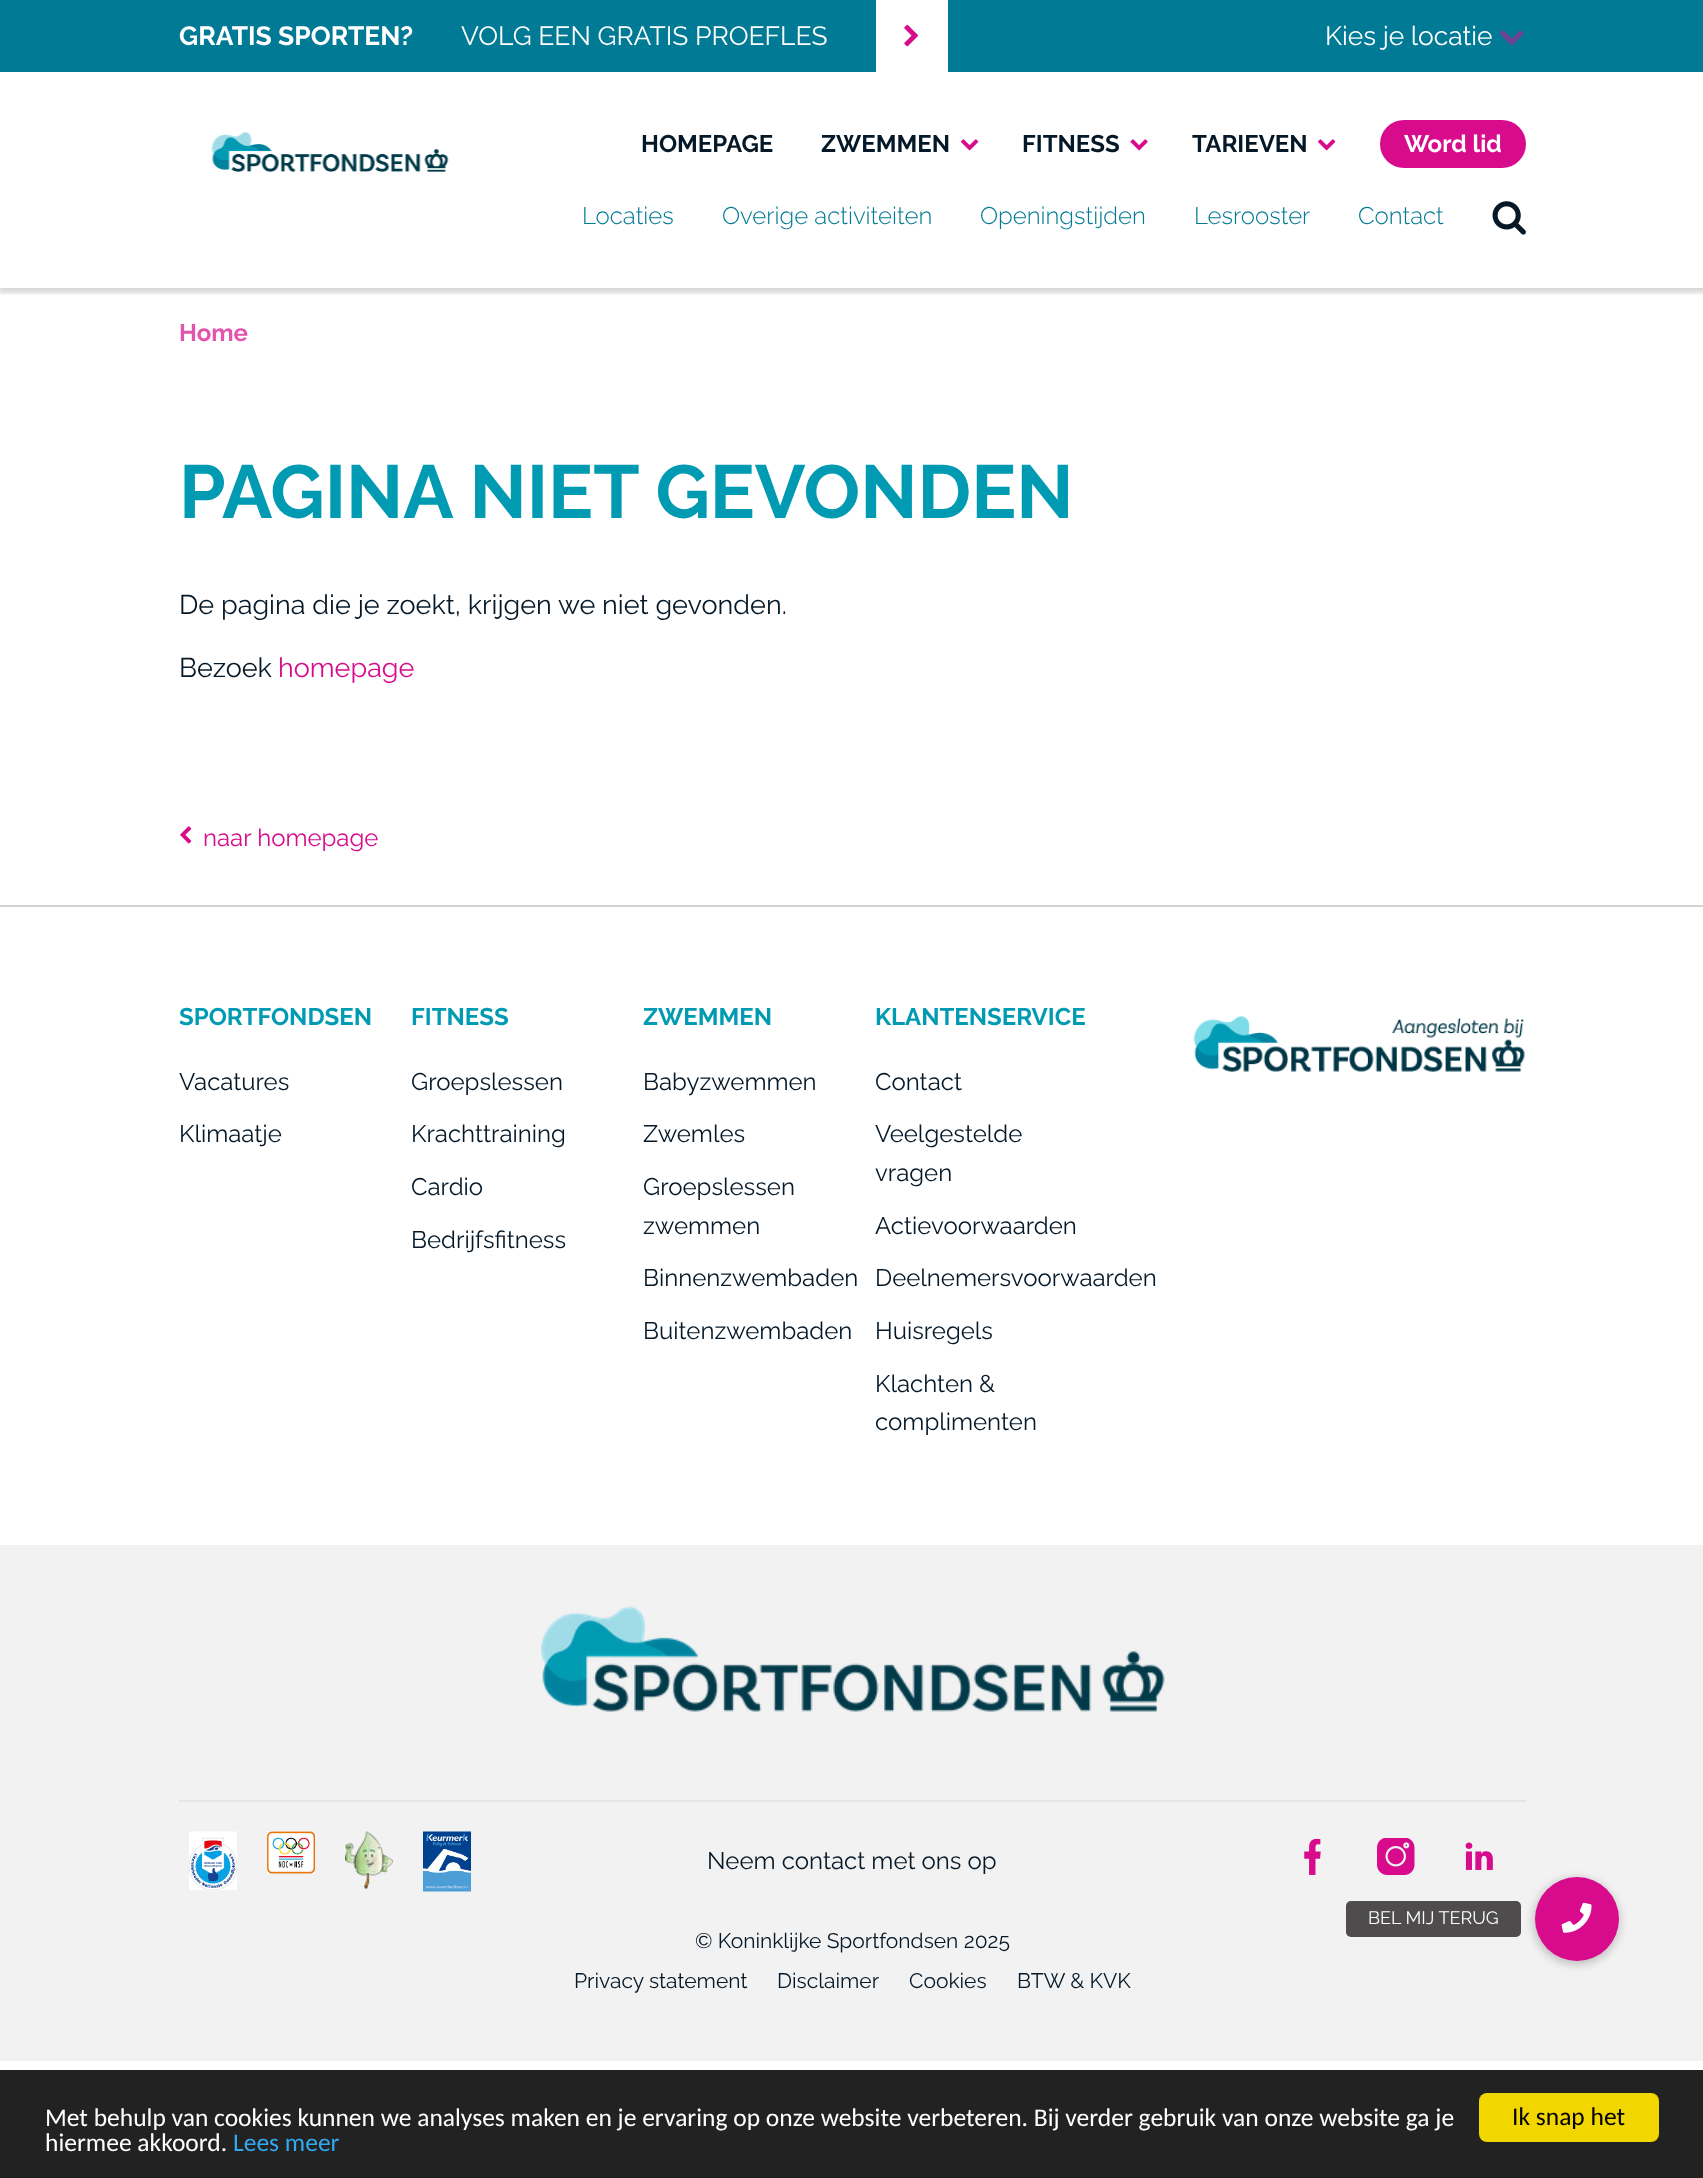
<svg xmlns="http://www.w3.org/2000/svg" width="1703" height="2178">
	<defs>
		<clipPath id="clip1"><rect x="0" y="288" width="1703" height="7" /></clipPath>
	</defs>
	<rect width="100%" height="100%" fill="#FFFFFF" />
	<g clip-path="url(#clip1)">
		<rect x="-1" y="74" width="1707" height="219" fill="#000000" fill-opacity="0.15" filter="blur(2px)" />
	</g>
	<rect x="0" y="0" width="1703" height="72" fill="#017A96" />
	<text x="179" y="45" font-family="Raleway" font-size="26.4" font-weight="700" fill="#FFFFFF">GRATIS SPORTEN?</text>
	<text x="461" y="45" font-family="Raleway" font-size="26.4" fill="#FFFFFF">VOLG EEN GRATIS PROEFLES</text>
	<rect x="876" y="0" width="72" height="72" fill="#FFFFFF" />
	<image x="904" y="24" width="14" height="23" href="assets/img1.png" />
	<text x="1325" y="45" font-family="Raleway" font-size="26.4" fill="#FFFFFF">Kies je locatie</text>
	<image x="1499" y="30" width="25" height="16" href="assets/img2.png" />
	<image x="211" y="132" width="238" height="40" href="assets/img3.png" />
	<g font-family="Raleway" font-size="24" font-weight="700" fill="#051828">
		<text x="641" y="152">HOMEPAGE</text>
		<text x="821" y="152">ZWEMMEN</text>
	</g>
	<image x="961" y="139" width="18" height="12" href="assets/img4.png" />
	<text x="1022" y="152" font-family="Raleway" font-size="24" font-weight="700" fill="#051828">FITNESS</text>
	<image x="1130" y="139" width="18" height="12" href="assets/img5.png" />
	<text x="1192" y="152" font-family="Raleway" font-size="24" font-weight="700" fill="#051828">TARIEVEN</text>
	<image x="1318" y="139" width="18" height="12" href="assets/img4.png" />
	<rect x="1380" y="120" width="146" height="48" rx="24" fill="#D70B8C" />
	<text x="1404" y="152" font-family="Raleway" font-size="24" font-weight="700" fill="#FFFFFF">Word lid</text>
	<g font-family="Raleway" font-size="24" font-weight="300" fill="#017A96">
		<text x="582" y="224">Locaties</text>
		<text x="722" y="224">Overige activiteiten</text>
		<text x="980" y="224">Openingstijden</text>
		<text x="1194" y="224">Lesrooster</text>
		<text x="1358" y="224">Contact</text>
	</g>
	<image x="1492" y="201" width="34" height="34" href="assets/img6.png" />
	<text x="179" y="341" font-family="Raleway" font-size="24" font-weight="700" fill="#E354AF">Home</text>
	<text x="179" y="518" font-family="Raleway" font-size="75" font-weight="700" fill="#009BB3">PAGINA NIET GEVONDEN</text>
	<g font-family="Raleway" font-size="27" fill="#051828">
		<text x="179" y="614">De pagina die je zoekt, krijgen we niet gevonden.</text>
		<text x="179" y="677">Bezoek</text>
	</g>
	<text x="278" y="677" font-family="Raleway" font-size="27" fill="#D70B8C">homepage</text>
	<image x="180" y="826" width="12" height="18" href="assets/img7.png" />
	<text x="203" y="846" font-family="Raleway" font-size="24" fill="#D70B8C">naar homepage</text>
	<rect x="0" y="905" width="1703" height="2" fill="#D3D3D3" />
	<text x="179" y="1025" font-family="Raleway" font-size="24" font-weight="700" fill="#009BB3">SPORTFONDSEN</text>
	<g font-family="Raleway" font-size="24" fill="#051828">
		<text x="179" y="1090">Vacatures</text>
		<text x="179" y="1142">Klimaatje</text>
	</g>
	<text x="411" y="1025" font-family="Raleway" font-size="24" font-weight="700" fill="#009BB3">FITNESS</text>
	<g font-family="Raleway" font-size="24" fill="#051828">
		<text x="411" y="1090">Groepslessen</text>
		<text x="411" y="1142">Krachttraining</text>
		<text x="411" y="1195">Cardio</text>
		<text x="411" y="1248">Bedrijfsfitness</text>
	</g>
	<text x="643" y="1025" font-family="Raleway" font-size="24" font-weight="700" fill="#009BB3">ZWEMMEN</text>
	<g font-family="Raleway" font-size="24" fill="#051828">
		<text x="643" y="1090">Babyzwemmen</text>
		<text x="643" y="1142">Zwemles</text>
		<text x="643" y="1195">Groepslessen</text>
		<text x="643" y="1234">zwemmen</text>
		<text x="643" y="1286">Binnenzwembaden</text>
		<text x="643" y="1339">Buitenzwembaden</text>
	</g>
	<text x="875" y="1025" font-family="Raleway" font-size="24" font-weight="700" fill="#009BB3">KLANTENSERVICE</text>
	<g font-family="Raleway" font-size="24" fill="#051828">
		<text x="875" y="1090">Contact</text>
		<text x="875" y="1142">Veelgestelde</text>
		<text x="875" y="1181">vragen</text>
		<text x="875" y="1234">Actievoorwaarden</text>
		<text x="875" y="1286">Deelnemersvoorwaarden</text>
		<text x="875" y="1339">Huisregels</text>
		<text x="875" y="1392">Klachten &amp;</text>
		<text x="875" y="1430">complimenten</text>
	</g>
	<image x="1193" y="1016" width="332" height="56" href="assets/img8.png" />
	<rect x="0" y="1545" width="1703" height="516" fill="#F2F2F2" />
	<image x="540" y="1606" width="625" height="106" href="assets/img9.png" />
	<rect x="179" y="1800" width="1347" height="2" fill="#E5E5E5" />
	<image x="189" y="1831" width="48" height="59" href="assets/img10.png" />
	<image x="267" y="1831" width="48" height="43" href="assets/img11.png" />
	<image x="345" y="1831" width="48" height="58" href="assets/img12.png" />
	<image x="423" y="1831" width="48" height="61" href="assets/img13.png" />
	<text x="707" y="1869" font-family="Raleway" font-size="24" fill="#051828">Neem contact met ons op</text>
	<image x="1304" y="1838" width="17" height="37" href="assets/img14.png" />
	<image x="1377" y="1838" width="38" height="37" href="assets/img15.png" />
	<image x="1465" y="1842" width="28" height="28" href="assets/img16.png" />
	<g font-family="Raleway" font-size="21" fill="#051828">
		<text x="695" y="1948">© Koninklijke Sportfondsen 2025</text>
		<text x="574" y="1988">Privacy statement</text>
		<text x="777" y="1988">Disclaimer</text>
		<text x="909" y="1988">Cookies</text>
		<text x="1017" y="1988">BTW &amp; KVK</text>
	</g>
	<rect x="1533" y="1878" width="87" height="87" rx="43.5" fill="#000000" fill-opacity="0.2" filter="blur(4.5px)" />
	<circle cx="1577" cy="1919" r="42" fill="#D70B8C" />
	<rect x="1346" y="1901" width="175" height="36" rx="5" fill="#4E4C4C" />
	<text x="1368" y="1924" font-family="Raleway" font-size="18" fill="#FFFFFF">BEL MIJ TERUG</text>
	<image x="1561" y="1902" width="31" height="31" href="assets/img17.png" />
	<rect x="0" y="2070" width="1703" height="108" fill="#222222" />
	<g font-family="Carlito" font-size="25.5" fill="#FFFFFF">
		<text x="45" y="2126">Met behulp van cookies kunnen we analyses maken en je ervaring op onze website verbeteren. Bij verder gebruik van onze website ga je</text>
		<text x="45" y="2151">hiermee akkoord.</text>
	</g>
	<text x="233" y="2151" font-family="Carlito" font-size="25.5" fill="#31A8F0">Lees meer</text>
	<rect x="1479" y="2093" width="180" height="49" rx="8" fill="#F1D600" />
	<text x="1512" y="2125" font-family="Carlito" font-size="25.5" fill="#000000">Ik snap het</text>
</svg>
